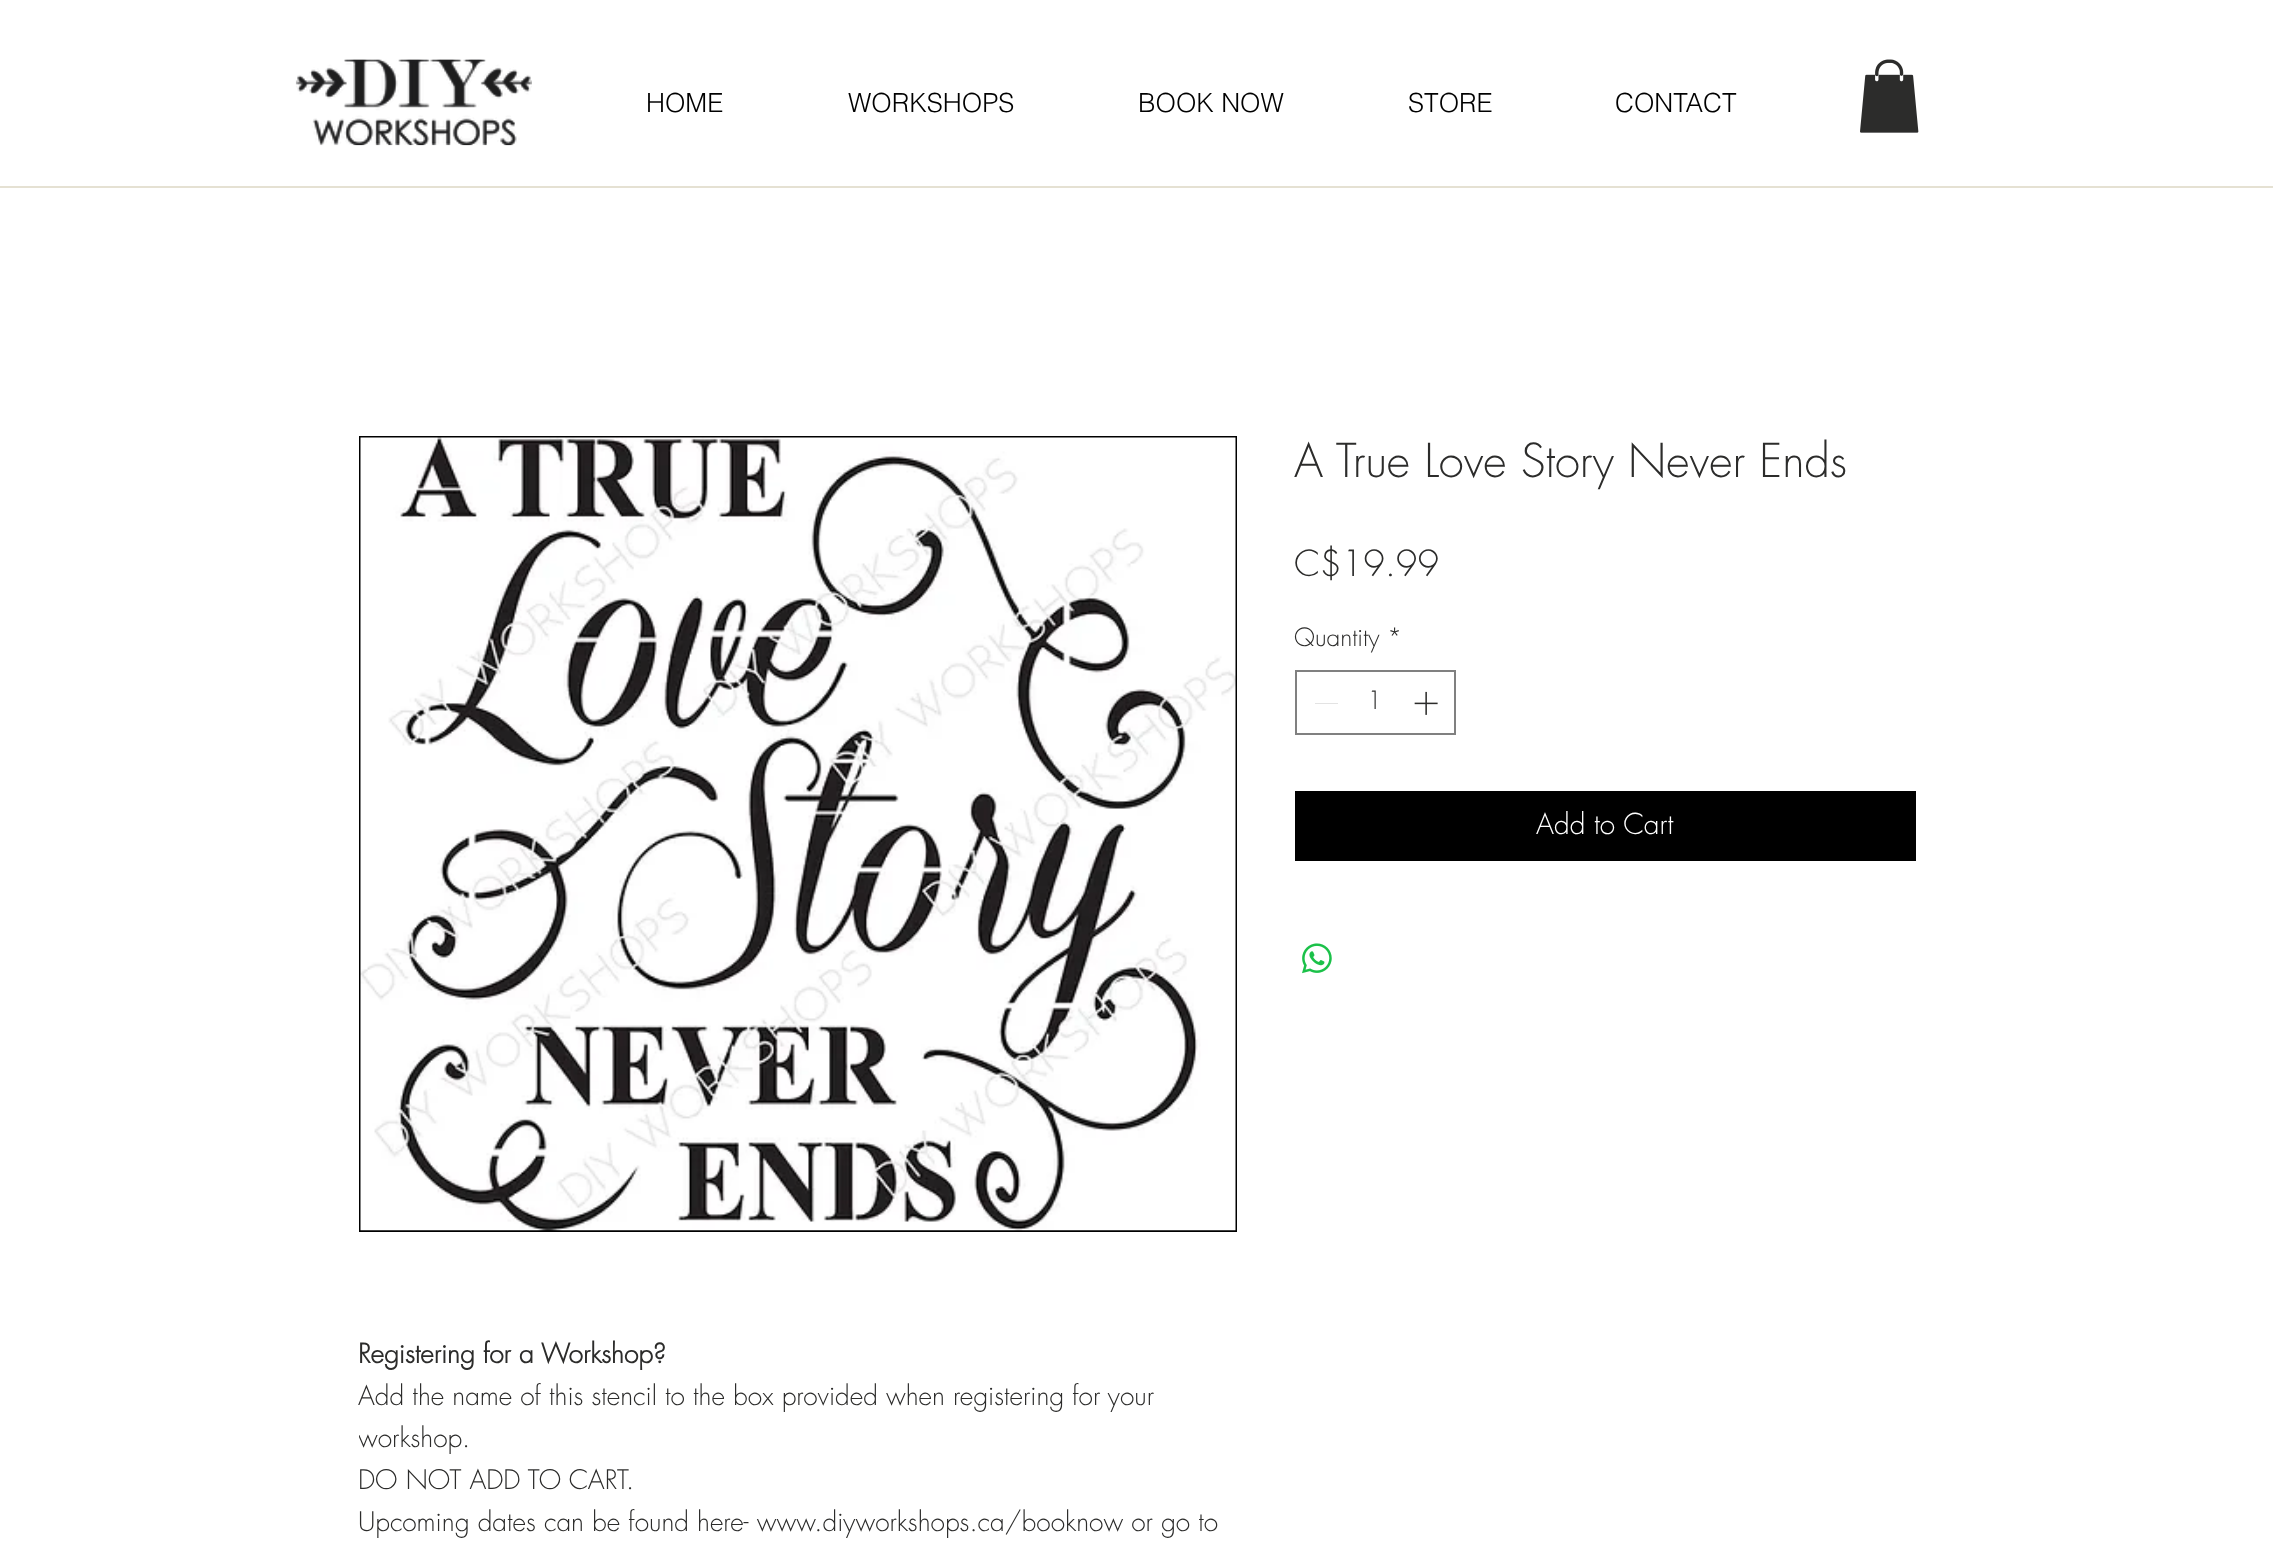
<svg xmlns="http://www.w3.org/2000/svg" width="2273" height="1552">
	<defs>
		<clipPath id="clip1"><rect x="359" y="1334" width="875" height="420" /></clipPath>
	</defs>
	<rect width="100%" height="100%" fill="#FFFFFF" />
	<image x="295" y="59" width="237" height="87" href="assets/img1.png" />
	<g font-family="helvetica" font-size="26.25" font-weight="300" fill="#000000">
		<text x="646" y="112">HOME</text>
		<text x="848" y="112">WORKSHOPS</text>
		<text x="1138" y="112">BOOK NOW</text>
		<text x="1408" y="112">STORE</text>
		<text x="1615" y="112">CONTACT</text>
	</g>
	<image x="1860" y="59" width="59" height="74" href="assets/img2.png" />
	<rect x="0" y="186" width="2273" height="2" fill="#E5E1D3" />
	<text x="1294" y="477" font-family="futura" font-size="45.5" font-weight="300" fill="#2C2C2B">A True Love Story Never Ends</text>
	<text x="1294" y="576" font-family="futura" font-size="35" font-weight="300" fill="#2C2C2B">C$19.99</text>
	<g font-family="futura" font-size="24.5" font-weight="300" fill="#2C2C2B">
		<text x="1294" y="646">Quantity</text>
		<text x="1387" y="646">*</text>
	</g>
	<rect x="1296" y="671" width="159" height="63" fill="none" stroke="#808080" stroke-width="2" />
	<rect x="1315" y="703" width="23" height="1" fill="#E3E3E3" />
	<text x="1367" y="709" font-family="futura" font-size="24.5" font-weight="300" fill="#2C2C2B">1</text>
	<image x="1414" y="691" width="24" height="24" href="assets/img3.png" />
	<rect x="1295" y="791" width="621" height="70" fill="#000000" />
	<text x="1536" y="834" font-family="futura" font-size="28" font-weight="300" fill="#FFFFFF">Add to Cart</text>
	<image x="1302" y="943" width="30" height="31" href="assets/img4.png" />
	<rect x="360" y="437" width="876" height="794" fill="none" stroke="#000000" stroke-width="2" />
	<image x="360" y="437" width="876" height="794" href="assets/img5.png" />
	<text x="358" y="1363" font-family="futura" font-size="26.25" font-weight="700" fill="#2C2C2B">Registering for a Workshop?</text>
	<text x="358" y="1405" font-family="futura" font-size="26.25" font-weight="300" fill="#2C2C2B">Add the name of this stencil to the box provided when registering for your</text>
	<g clip-path="url(#clip1)">
		<text x="358" y="1447" font-family="futura" font-size="26.25" font-weight="300" fill="#2C2C2B">workshop.</text>
	</g>
	<g font-family="futura" font-size="26.25" font-weight="300" fill="#2C2C2B">
		<text x="358" y="1489">DO NOT ADD TO CART.</text>
		<text x="358" y="1531">Upcoming dates can be found here- www.diyworkshops.ca/booknow or go to</text>
	</g>
</svg>
